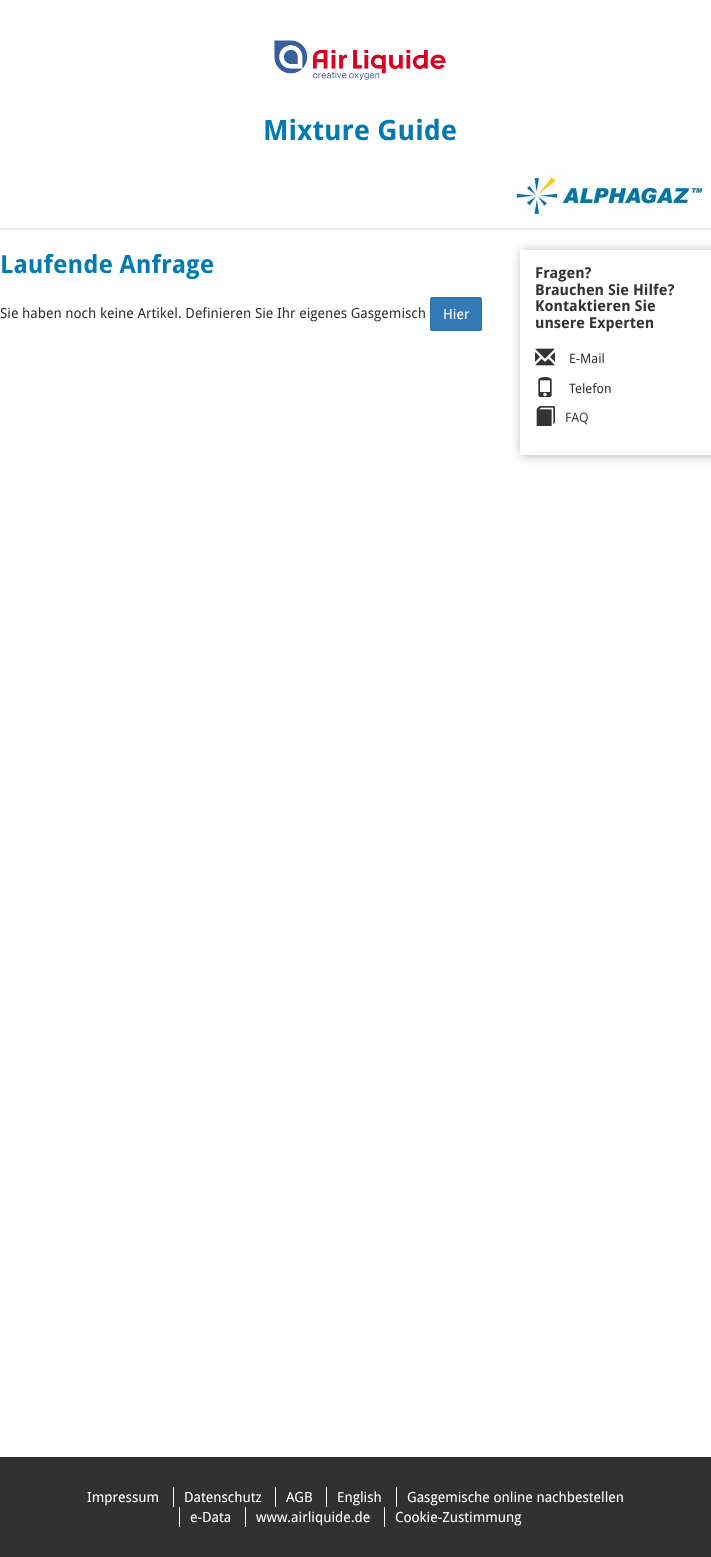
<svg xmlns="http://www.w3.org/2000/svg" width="711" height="1557">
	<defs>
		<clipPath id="clip1"><path d="M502 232H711V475H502ZM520 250H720V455H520Z" clip-rule="evenodd" /></clipPath>
	</defs>
	<rect width="100%" height="100%" fill="#FFFFFF" />
	<image x="274" y="40" width="172" height="40" href="assets/img1.png" />
	<text x="263" y="140" font-family="Droid Sans" font-size="28" font-weight="700" fill="#037AB2">Mixture Guide</text>
	<image x="511" y="169" width="194" height="48" href="assets/img2.png" />
	<rect x="0" y="228" width="711" height="2" fill="#E9E9E9" />
	<text x="0" y="273" font-family="Droid Sans" font-size="25" font-weight="700" fill="#037AB2">Laufende Anfrage</text>
	<g clip-path="url(#clip1)">
		<rect x="521" y="251" width="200" height="205" fill="#BABABA" filter="blur(6px)" />
	</g>
	<g font-family="Droid Sans" font-size="15" font-weight="700" fill="#333333">
		<text x="535" y="278">Fragen?</text>
		<text x="535" y="295">Brauchen Sie Hilfe?</text>
		<text x="535" y="311">Kontaktieren Sie</text>
		<text x="535" y="328">unsere Experten</text>
	</g>
	<image x="535" y="348" width="20" height="18" href="assets/img3.png" />
	<text x="569" y="363" font-family="Droid Sans" font-size="13" fill="#333333">E-Mail</text>
	<image x="538" y="377" width="14" height="20" href="assets/img4.png" />
	<text x="569" y="393" font-family="Droid Sans" font-size="13" fill="#333333">Telefon</text>
	<image x="536" y="406" width="19" height="20" href="assets/img5.png" />
	<text x="565" y="422" font-family="Droid Sans" font-size="13" fill="#3E3E3E">FAQ</text>
	<text x="0" y="318" font-family="Droid Sans" font-size="14" fill="#333333">Sie haben noch keine Artikel. Definieren Sie Ihr eigenes Gasgemisch</text>
	<rect x="430.5" y="297.5" width="51" height="33" rx="1.5" fill="#337AB7" stroke="#2E6DA4" />
	<text x="443" y="319" font-family="Droid Sans" font-size="14" fill="#FFFFFF">Hier</text>
	<rect x="0" y="1457" width="711" height="100" fill="#313131" />
	<text x="87" y="1502" font-family="Droid Sans" font-size="14" fill="#FFFFFF">Impressum</text>
	<rect x="173" y="1487" width="1" height="20" fill="#FEFEFE" />
	<text x="184" y="1502" font-family="Droid Sans" font-size="14" fill="#FFFFFF">Datenschutz</text>
	<rect x="275" y="1487" width="1" height="20" fill="#FEFEFE" />
	<text x="286" y="1502" font-family="Droid Sans" font-size="14" fill="#FFFFFF">AGB</text>
	<rect x="326" y="1487" width="1" height="20" fill="#FEFEFE" />
	<text x="337" y="1502" font-family="Droid Sans" font-size="14" fill="#FFFFFF">English</text>
	<rect x="396" y="1487" width="1" height="20" fill="#FEFEFE" />
	<text x="407" y="1502" font-family="Droid Sans" font-size="14" fill="#FFFFFF">Gasgemische online nachbestellen</text>
	<rect x="179" y="1507" width="1" height="20" fill="#FEFEFE" />
	<text x="190" y="1522" font-family="Droid Sans" font-size="14" fill="#FFFFFF">e-Data</text>
	<rect x="245" y="1507" width="1" height="20" fill="#FEFEFE" />
	<text x="256" y="1522" font-family="Droid Sans" font-size="14" fill="#FFFFFF">www.airliquide.de</text>
	<rect x="384" y="1507" width="1" height="20" fill="#FEFEFE" />
	<text x="395" y="1522" font-family="Droid Sans" font-size="14" fill="#FFFFFF">Cookie-Zustimmung</text>
</svg>
